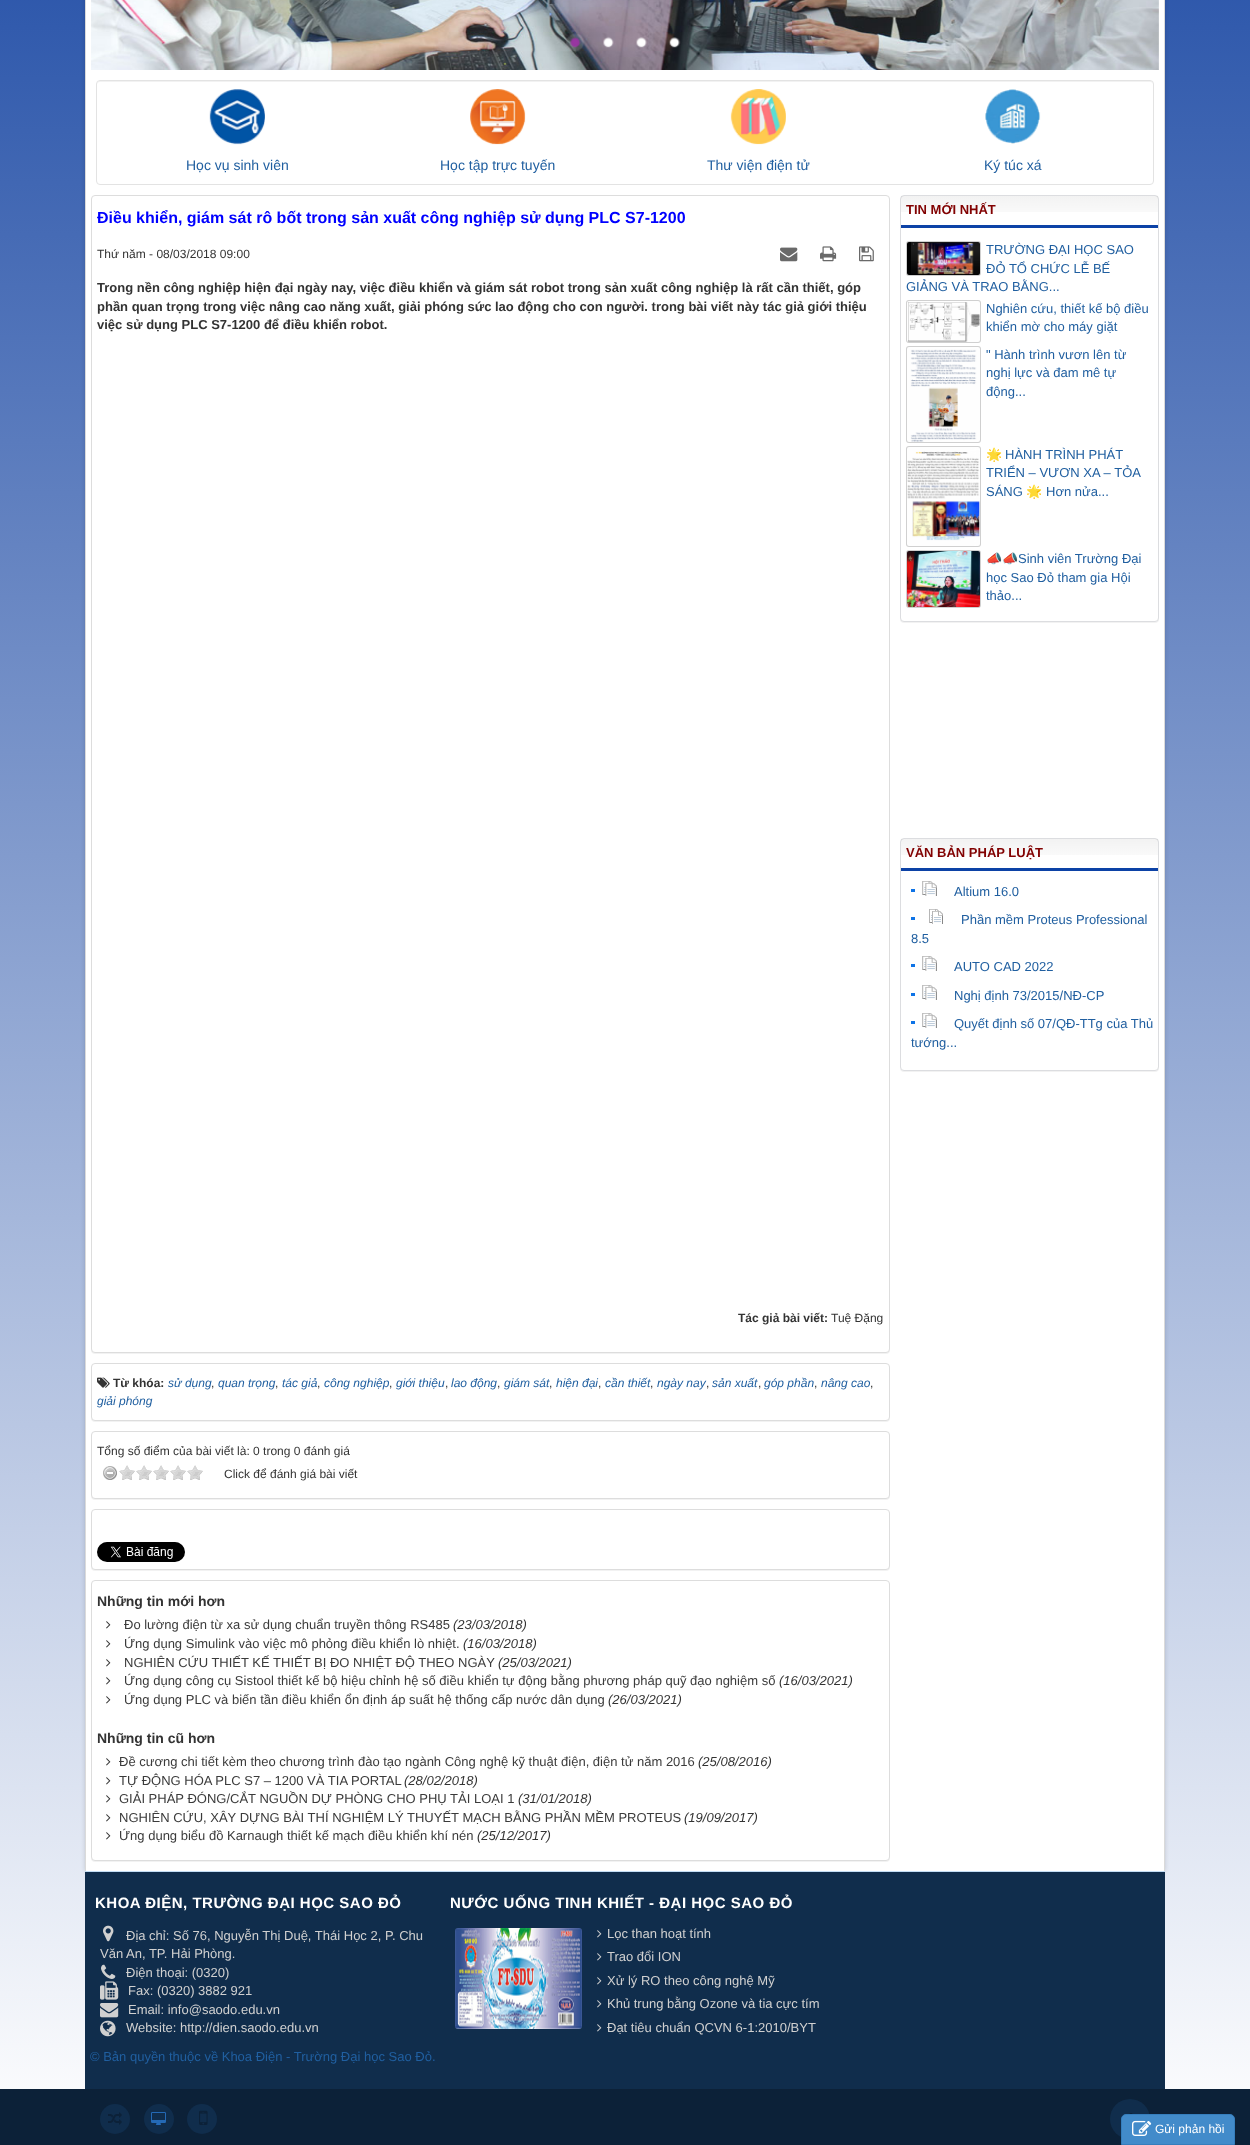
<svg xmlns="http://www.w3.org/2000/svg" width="1250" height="2145">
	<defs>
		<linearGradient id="g1" gradientUnits="userSpaceOnUse" x1="625" y1="-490" x2="625" y2="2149"><stop offset="0" stop-color="#003399" /><stop offset="1" stop-color="#FFFFFF" /></linearGradient>
		<linearGradient id="g2" gradientUnits="userSpaceOnUse" x1="1030" y1="196" x2="1030" y2="225"><stop offset="0" stop-color="#000000" stop-opacity="0.05" /><stop offset="1" stop-color="#000000" stop-opacity="0" /></linearGradient>
		<linearGradient id="g3" gradientUnits="userSpaceOnUse" x1="1030" y1="839" x2="1030" y2="868"><stop offset="0" stop-color="#000000" stop-opacity="0.05" /><stop offset="1" stop-color="#000000" stop-opacity="0" /></linearGradient>
	</defs>
	<rect width="100%" height="100%" fill="#FFFFFF" />
	<rect x="0" y="0" width="1250" height="2089" fill="url(#g1)" />
	<rect x="85" y="-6" width="1080" height="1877" fill="#000000" fill-opacity="0.15" filter="blur(2px)" />
	<rect x="86" y="0" width="1078" height="1871" fill="#FFFFFF" />
	<rect x="1164" y="0" width="1" height="1871" fill="#DADADA" />
	<rect x="85" y="0" width="1" height="1871" fill="#DADADA" />
	<image x="91" y="0" width="1068" height="70" href="assets/img1.png" />
	<image x="566" y="33" width="19" height="19" href="assets/img2.png" />
	<image x="603" y="37" width="11" height="11" href="assets/img3.png" />
	<image x="636" y="37" width="11" height="11" href="assets/img4.png" />
	<image x="669" y="37" width="12" height="11" href="assets/img5.png" />
	<path d="M100 82H1150C1152 82 1153 83 1153 85C1153 83 1152 81 1150 81H100C98 81 97 83 97 85C97 83 98 82 100 82Z" fill="#F2F2F2" />
	<rect x="96.5" y="80.5" width="1057" height="104" rx="3.5" fill="none" stroke="#E3E3E3" />
	<image x="209" y="89" width="56" height="56" href="assets/img6.png" />
	<image x="470" y="89" width="56" height="56" href="assets/img7.png" />
	<image x="730" y="89" width="56" height="56" href="assets/img8.png" />
	<image x="985" y="89" width="56" height="55" href="assets/img9.png" />
	<g font-family="Liberation Sans" font-size="14" fill="#205FA0">
		<text x="186" y="170">Học vụ sinh viên</text>
		<text x="440" y="170">Học tập trực tuyến</text>
		<text x="707" y="170">Thư viện điện tử</text>
		<text x="984" y="170">Ký túc xá</text>
	</g>
	<rect x="91" y="196" width="799" height="1158" rx="4" fill="#000000" fill-opacity="0.05" filter="blur(0.5px)" />
	<rect x="91.5" y="195.5" width="798" height="1157" rx="3.5" fill="#FFFFFF" stroke="#DDDDDD" />
	<text x="97" y="223" font-family="Liberation Sans" font-size="16" font-weight="700" fill="#0000FF">Điều khiển, giám sát rô bốt trong sản xuất công nghiệp sử dụng PLC S7-1200</text>
	<text x="97" y="258" font-family="Liberation Sans" font-size="12" fill="#333333">Thứ năm - 08/03/2018 09:00</text>
	<image x="780" y="247" width="18" height="15" href="assets/img10.png" />
	<image x="820" y="246" width="17" height="16" href="assets/img11.png" />
	<image x="859" y="246" width="15" height="16" href="assets/img12.png" />
	<g font-family="Liberation Sans" font-size="13" font-weight="700" fill="#333333">
		<text x="97" y="292">Trong nền công nghiệp hiện đại ngày nay, việc điều khiển và giám sát robot trong sản xuất công nghiệp là rất cần thiết, góp</text>
		<text x="97" y="311">phần quan trọng trong việc nâng cao năng xuất, giải phóng sức lao động cho con người. trong bài viết này tác giả giới thiệu</text>
		<text x="97" y="329">việc sử dụng PLC S7-1200 để điều khiển robot.</text>
	</g>
	<text x="738" y="1322" font-family="Liberation Sans" font-size="12" font-weight="700" fill="#333333">Tác giả bài viết:</text>
	<text x="831" y="1322" font-family="Liberation Sans" font-size="12" fill="#333333">Tuệ Đặng</text>
	<rect x="91" y="1364" width="799" height="58" rx="4" fill="#000000" fill-opacity="0.05" filter="blur(0.5px)" />
	<rect x="91.5" y="1363.5" width="798" height="57" rx="3.5" fill="#FFFFFF" stroke="#DDDDDD" />
	<image x="97" y="1377" width="13" height="11" href="assets/img13.png" />
	<text x="113" y="1387" font-family="Liberation Sans" font-size="12" font-weight="700" fill="#333333">Từ khóa:</text>
	<text x="168" y="1387" font-family="Liberation Sans" font-size="12" font-style="italic" fill="#205FA0">sử dụng</text>
	<text x="211" y="1387" font-family="Liberation Sans" font-size="12" fill="#333333">,</text>
	<text x="218" y="1387" font-family="Liberation Sans" font-size="12" font-style="italic" fill="#205FA0">quan trọng</text>
	<text x="275" y="1387" font-family="Liberation Sans" font-size="12" fill="#333333">,</text>
	<text x="282" y="1387" font-family="Liberation Sans" font-size="12" font-style="italic" fill="#205FA0">tác giả</text>
	<text x="317" y="1387" font-family="Liberation Sans" font-size="12" fill="#333333">,</text>
	<text x="324" y="1387" font-family="Liberation Sans" font-size="12" font-style="italic" fill="#205FA0">công nghiệp</text>
	<text x="389" y="1387" font-family="Liberation Sans" font-size="12" fill="#333333">,</text>
	<text x="396" y="1387" font-family="Liberation Sans" font-size="12" font-style="italic" fill="#205FA0">giới thiệu</text>
	<text x="445" y="1387" font-family="Liberation Sans" font-size="12" fill="#333333">,</text>
	<text x="451" y="1387" font-family="Liberation Sans" font-size="12" font-style="italic" fill="#205FA0">lao động</text>
	<text x="497" y="1387" font-family="Liberation Sans" font-size="12" fill="#333333">,</text>
	<text x="504" y="1387" font-family="Liberation Sans" font-size="12" font-style="italic" fill="#205FA0">giám sát</text>
	<text x="549" y="1387" font-family="Liberation Sans" font-size="12" fill="#333333">,</text>
	<text x="556" y="1387" font-family="Liberation Sans" font-size="12" font-style="italic" fill="#205FA0">hiện đại</text>
	<text x="598" y="1387" font-family="Liberation Sans" font-size="12" fill="#333333">,</text>
	<text x="605" y="1387" font-family="Liberation Sans" font-size="12" font-style="italic" fill="#205FA0">cần thiết</text>
	<text x="650" y="1387" font-family="Liberation Sans" font-size="12" fill="#333333">,</text>
	<g font-family="Liberation Sans" font-size="12" font-style="italic" fill="#205FA0">
		<text x="657" y="1387">ngày nay</text>
		<text x="712" y="1387">sản xuất</text>
		<text x="764" y="1387">góp phần</text>
		<text x="821" y="1387">nâng cao</text>
	</g>
	<g font-family="Liberation Sans" font-size="12" fill="#333333">
		<text x="706" y="1387">,</text>
		<text x="758" y="1387">,</text>
		<text x="814" y="1387">,</text>
		<text x="870" y="1387">,</text>
	</g>
	<text x="97" y="1405" font-family="Liberation Sans" font-size="12" font-style="italic" fill="#205FA0">giải phóng</text>
	<rect x="91" y="1432" width="799" height="68" rx="4" fill="#000000" fill-opacity="0.05" filter="blur(0.5px)" />
	<rect x="91.5" y="1431.5" width="798" height="67" rx="3.5" fill="#FFFFFF" stroke="#DDDDDD" />
	<text x="97" y="1455" font-family="Liberation Sans" font-size="12" fill="#333333">Tổng số điểm của bài viết là: 0 trong 0 đánh giá</text>
	<image x="103" y="1466" width="14" height="14" href="assets/img14.png" />
	<image x="119" y="1465" width="16" height="15" href="assets/img15.png" />
	<image x="136" y="1465" width="16" height="15" href="assets/img15.png" />
	<image x="153" y="1465" width="16" height="15" href="assets/img15.png" />
	<image x="170" y="1465" width="16" height="15" href="assets/img15.png" />
	<image x="187" y="1465" width="16" height="15" href="assets/img15.png" />
	<text x="224" y="1478" font-family="Liberation Sans" font-size="12" fill="#333333">Click để đánh giá bài viết</text>
	<rect x="91" y="1510" width="799" height="61" rx="4" fill="#000000" fill-opacity="0.05" filter="blur(0.5px)" />
	<rect x="91.5" y="1509.5" width="798" height="60" rx="3.5" fill="#FFFFFF" stroke="#DDDDDD" />
	<image x="97" y="1542" width="88" height="20" href="assets/img16.png" />
	<rect x="91" y="1581" width="799" height="281" rx="4" fill="#000000" fill-opacity="0.05" filter="blur(0.5px)" />
	<rect x="91.5" y="1580.5" width="798" height="280" rx="3.5" fill="#FFFFFF" stroke="#DDDDDD" />
	<text x="97" y="1606" font-family="Liberation Sans" font-size="14" font-weight="700" fill="#333333">Những tin mới hơn</text>
	<image x="106" y="1621" width="5" height="8" href="assets/img17.png" />
	<text x="124" y="1629" font-family="Liberation Sans" font-size="13" fill="#3B3B3B">Đo lường điện từ xa sử dụng chuẩn truyền thông RS485</text>
	<text x="453" y="1629" font-family="Liberation Sans" font-size="13" font-style="italic" fill="#333333">(23/03/2018)</text>
	<image x="106" y="1640" width="5" height="8" href="assets/img17.png" />
	<text x="124" y="1648" font-family="Liberation Sans" font-size="13" fill="#3B3B3B">Ứng dụng Simulink vào việc mô phỏng điều khiển lò nhiệt.</text>
	<text x="463" y="1648" font-family="Liberation Sans" font-size="13" font-style="italic" fill="#333333">(16/03/2018)</text>
	<image x="106" y="1659" width="5" height="8" href="assets/img17.png" />
	<text x="124" y="1667" font-family="Liberation Sans" font-size="13" fill="#3B3B3B">NGHIÊN CỨU THIẾT KẾ THIẾT BỊ ĐO NHIỆT ĐỘ THEO NGÀY</text>
	<text x="498" y="1667" font-family="Liberation Sans" font-size="13" font-style="italic" fill="#333333">(25/03/2021)</text>
	<image x="106" y="1677" width="5" height="8" href="assets/img17.png" />
	<text x="124" y="1685" font-family="Liberation Sans" font-size="13" fill="#3B3B3B">Ứng dụng công cụ Sistool thiết kế bộ hiệu chỉnh hệ số điều khiển tự động bằng phương pháp quỹ đạo nghiệm số</text>
	<text x="779" y="1685" font-family="Liberation Sans" font-size="13" font-style="italic" fill="#333333">(16/03/2021)</text>
	<image x="106" y="1696" width="5" height="8" href="assets/img17.png" />
	<text x="124" y="1704" font-family="Liberation Sans" font-size="13" fill="#3B3B3B">Ứng dụng PLC và biến tần điều khiển ổn định áp suất hệ thống cấp nước dân dụng</text>
	<text x="608" y="1704" font-family="Liberation Sans" font-size="13" font-style="italic" fill="#333333">(26/03/2021)</text>
	<text x="97" y="1743" font-family="Liberation Sans" font-size="14" font-weight="700" fill="#333333">Những tin cũ hơn</text>
	<image x="106" y="1758" width="5" height="8" href="assets/img17.png" />
	<text x="119" y="1766" font-family="Liberation Sans" font-size="13" fill="#3B3B3B">Đề cương chi tiết kèm theo chương trình đào tạo ngành Công nghệ kỹ thuật điện, điện tử năm 2016</text>
	<text x="698" y="1766" font-family="Liberation Sans" font-size="13" font-style="italic" fill="#333333">(25/08/2016)</text>
	<image x="106" y="1777" width="5" height="8" href="assets/img17.png" />
	<text x="119" y="1785" font-family="Liberation Sans" font-size="13" fill="#3B3B3B">TỰ ĐỘNG HÓA PLC S7 – 1200 VÀ TIA PORTAL</text>
	<text x="404" y="1785" font-family="Liberation Sans" font-size="13" font-style="italic" fill="#333333">(28/02/2018)</text>
	<image x="106" y="1795" width="5" height="8" href="assets/img17.png" />
	<text x="119" y="1803" font-family="Liberation Sans" font-size="13" fill="#3B3B3B">GIẢI PHÁP ĐÓNG/CẮT NGUỒN DỰ PHÒNG CHO PHỤ TẢI LOẠI 1</text>
	<text x="518" y="1803" font-family="Liberation Sans" font-size="13" font-style="italic" fill="#333333">(31/01/2018)</text>
	<image x="106" y="1814" width="5" height="8" href="assets/img17.png" />
	<text x="119" y="1822" font-family="Liberation Sans" font-size="13" fill="#3B3B3B">NGHIÊN CỨU, XÂY DỰNG BÀI THÍ NGHIỆM LÝ THUYẾT MẠCH BẰNG PHẦN MỀM PROTEUS</text>
	<text x="684" y="1822" font-family="Liberation Sans" font-size="13" font-style="italic" fill="#333333">(19/09/2017)</text>
	<image x="106" y="1832" width="5" height="8" href="assets/img17.png" />
	<text x="119" y="1840" font-family="Liberation Sans" font-size="13" fill="#3B3B3B">Ứng dụng biểu đồ Karnaugh thiết kế mạch điều khiển khí nén</text>
	<text x="477" y="1840" font-family="Liberation Sans" font-size="13" font-style="italic" fill="#333333">(25/12/2017)</text>
	<rect x="900" y="196" width="259" height="427" rx="4" fill="#000000" fill-opacity="0.05" filter="blur(0.5px)" />
	<rect x="900.5" y="195.5" width="258" height="426" rx="3.5" fill="#FFFFFF" stroke="#DCDDE0" />
	<rect x="901" y="196" width="257" height="16" fill="url(#g2)" />
	<rect x="901" y="225" width="257" height="3" fill="#0C42A6" />
	<text x="906" y="214" font-family="Liberation Sans" font-size="13" font-weight="700" fill="#820202">TIN MỚI NHẤT</text>
	<rect x="906" y="241" width="75" height="35" rx="3" fill="#D0D0D0" />
	<image x="907" y="242" width="73" height="33" href="assets/img18.png" />
	<g font-family="Liberation Sans" font-size="13" fill="#205FA0">
		<text x="986" y="254">TRƯỜNG ĐẠI HỌC SAO</text>
		<text x="986" y="273">ĐỎ TỔ CHỨC LỄ BẾ</text>
		<text x="906" y="291">GIẢNG VÀ TRAO BẰNG...</text>
	</g>
	<rect x="906" y="300" width="75" height="43" rx="3" fill="#D0D0D0" />
	<image x="907" y="301" width="73" height="41" href="assets/img19.png" />
	<g font-family="Liberation Sans" font-size="13" fill="#205FA0">
		<text x="986" y="313">Nghiên cứu, thiết kế bộ điều</text>
		<text x="986" y="331">khiển mờ cho máy giặt</text>
	</g>
	<rect x="906" y="346" width="75" height="97" rx="3" fill="#D0D0D0" />
	<image x="907" y="347" width="73" height="95" href="assets/img20.png" />
	<g font-family="Liberation Sans" font-size="13" fill="#205FA0">
		<text x="986" y="359">" Hành trình vươn lên từ</text>
		<text x="986" y="377">nghị lực và đam mê tự</text>
		<text x="986" y="396">động...</text>
	</g>
	<rect x="906" y="446" width="75" height="101" rx="3" fill="#D0D0D0" />
	<image x="907" y="447" width="73" height="99" href="assets/img21.png" />
	<text x="986" y="459" font-family="Noto Color Emoji" font-size="13" fill="#205FA0">🌟</text>
	<g font-family="Liberation Sans" font-size="13" fill="#205FA0">
		<text x="1005" y="459">HÀNH TRÌNH PHÁT</text>
		<text x="986" y="477">TRIỂN – VƯƠN XA – TỎA</text>
		<text x="986" y="496">SÁNG</text>
	</g>
	<text x="1026" y="496" font-family="Noto Color Emoji" font-size="13" fill="#205FA0">🌟</text>
	<text x="1046" y="496" font-family="Liberation Sans" font-size="13" fill="#205FA0">Hơn nửa...</text>
	<rect x="906" y="550" width="75" height="58" rx="3" fill="#D0D0D0" />
	<image x="907" y="551" width="73" height="56" href="assets/img22.png" />
	<text x="986" y="563" font-family="Noto Color Emoji" font-size="13" fill="#205FA0">📣📣</text>
	<g font-family="Liberation Sans" font-size="13" fill="#205FA0">
		<text x="1018" y="563">Sinh viên Trường Đại</text>
		<text x="986" y="582">học Sao Đỏ tham gia Hội</text>
		<text x="986" y="600">thảo...</text>
	</g>
	<rect x="900" y="839" width="259" height="233" rx="4" fill="#000000" fill-opacity="0.05" filter="blur(0.5px)" />
	<rect x="900.5" y="838.5" width="258" height="232" rx="3.5" fill="#FFFFFF" stroke="#DCDDE0" />
	<rect x="901" y="839" width="257" height="16" fill="url(#g3)" />
	<rect x="901" y="868" width="257" height="3" fill="#0C42A6" />
	<text x="906" y="857" font-family="Liberation Sans" font-size="13" font-weight="700" fill="#820202">VĂN BẢN PHÁP LUẬT</text>
	<rect x="911" y="889" width="4" height="3" fill="#0E73E6" />
	<image x="922" y="881" width="15" height="15" href="assets/img23.png" />
	<text x="954" y="896" font-family="Liberation Sans" font-size="13" fill="#205FA0">Altium 16.0</text>
	<rect x="911" y="917" width="4" height="3" fill="#0E73E6" />
	<image x="929" y="909" width="14" height="15" href="assets/img24.png" />
	<g font-family="Liberation Sans" font-size="13" fill="#205FA0">
		<text x="961" y="924">Phần mềm Proteus Professional</text>
		<text x="911" y="943">8.5</text>
	</g>
	<rect x="911" y="964" width="4" height="3" fill="#0E73E6" />
	<image x="922" y="956" width="15" height="15" href="assets/img23.png" />
	<text x="954" y="971" font-family="Liberation Sans" font-size="13" fill="#205FA0">AUTO CAD 2022</text>
	<rect x="911" y="993" width="4" height="3" fill="#0E73E6" />
	<image x="922" y="985" width="15" height="15" href="assets/img23.png" />
	<text x="954" y="1000" font-family="Liberation Sans" font-size="13" fill="#205FA0">Nghị định 73/2015/NĐ-CP</text>
	<rect x="911" y="1021" width="4" height="3" fill="#0E73E6" />
	<image x="922" y="1013" width="15" height="15" href="assets/img23.png" />
	<g font-family="Liberation Sans" font-size="13" fill="#205FA0">
		<text x="954" y="1028">Quyết định số 07/QĐ-TTg của Thủ</text>
		<text x="911" y="1047">tướng...</text>
	</g>
	<rect x="85" y="1872" width="1080" height="217" fill="#102D4C" />
	<rect x="85" y="1871" width="1080" height="1" fill="#C3DDF4" />
	<text x="95" y="1908" font-family="Liberation Sans" font-size="15" font-weight="700" letter-spacing="0.5" fill="#FFFFFF">KHOA ĐIỆN, TRƯỜNG ĐẠI HỌC SAO ĐỎ</text>
	<image x="103" y="1925" width="11" height="17" href="assets/img25.png" />
	<g font-family="Liberation Sans" font-size="13" fill="#D0D0D0">
		<text x="126" y="1940">Địa chỉ: Số 76, Nguyễn Thị Duệ, Thái Học 2, P. Chu</text>
		<text x="100" y="1958">Văn An, TP. Hải Phòng.</text>
	</g>
	<image x="101" y="1964" width="15" height="15" href="assets/img26.png" />
	<text x="126" y="1977" font-family="Liberation Sans" font-size="13" fill="#D0D0D0">Điện thoại: (0320)</text>
	<image x="100" y="1981" width="19" height="19" href="assets/img27.png" />
	<text x="128" y="1995" font-family="Liberation Sans" font-size="13" fill="#D0D0D0">Fax: (0320) 3882 921</text>
	<image x="100" y="2003" width="19" height="15" href="assets/img28.png" />
	<text x="128" y="2014" font-family="Liberation Sans" font-size="13" fill="#D0D0D0">Email: info@saodo.edu.vn</text>
	<image x="100" y="2020" width="16" height="17" href="assets/img29.png" />
	<text x="126" y="2032" font-family="Liberation Sans" font-size="13" fill="#D0D0D0">Website: http://dien.saodo.edu.vn</text>
	<text x="90" y="2061" font-family="Liberation Sans" font-size="13" fill="#205FA0">© Bản quyền thuộc về Khoa Điện - Trường Đại học Sao Đỏ.</text>
	<rect x="0" y="2089" width="1250" height="56" fill="#0C2138" />
	<circle cx="1130" cy="2119" r="20" fill="#102D4C" />
	<path d="M1126 2114.5H1230C1232.5 2114.5 1234.5 2116.5 1234.5 2119V2144.5H1121.5V2119C1121.5 2116.5 1123.5 2114.5 1126 2114.5Z" fill="#428BCA" stroke="#357EBD" />
	<image x="1132" y="2120" width="20" height="16" href="assets/img30.png" />
	<text x="1155" y="2133" font-family="Liberation Sans" font-size="12" fill="#FFFFFF">Gửi phản hồi</text>
	<text x="450" y="1908" font-family="Liberation Sans" font-size="15" font-weight="700" letter-spacing="0.5" fill="#FFFFFF">NƯỚC UỐNG TINH KHIẾT - ĐẠI HỌC SAO ĐỎ</text>
	<image x="455" y="1928" width="127" height="101" href="assets/img31.png" />
	<image x="597" y="1930" width="5" height="8" href="assets/img32.png" />
	<text x="607" y="1938" font-family="Liberation Sans" font-size="13" fill="#D0D0D0">Lọc than hoạt tính</text>
	<image x="597" y="1953" width="5" height="8" href="assets/img32.png" />
	<text x="607" y="1961" font-family="Liberation Sans" font-size="13" fill="#D0D0D0">Trao đổi ION</text>
	<image x="597" y="1977" width="5" height="8" href="assets/img32.png" />
	<text x="607" y="1985" font-family="Liberation Sans" font-size="13" fill="#D0D0D0">Xử lý RO theo công nghệ Mỹ</text>
	<image x="597" y="2000" width="5" height="8" href="assets/img32.png" />
	<text x="607" y="2008" font-family="Liberation Sans" font-size="13" fill="#D0D0D0">Khủ trung bằng Ozone và tia cực tím</text>
	<image x="597" y="2024" width="5" height="8" href="assets/img32.png" />
	<text x="607" y="2032" font-family="Liberation Sans" font-size="13" fill="#D0D0D0">Đạt tiêu chuẩn QCVN 6-1:2010/BYT</text>
	<circle cx="115" cy="2119" r="15" fill="#102D4C" />
	<image x="108" y="2112" width="14" height="13" href="assets/img33.png" />
	<circle cx="159" cy="2119" r="15" fill="#102D4C" />
	<image x="151" y="2112" width="15" height="13" href="assets/img34.png" />
	<circle cx="202" cy="2119" r="15" fill="#102D4C" />
	<image x="199" y="2110" width="9" height="15" href="assets/img35.png" />
	<image x="1129" y="2113" width="4" height="1" href="assets/img36.png" />
</svg>
